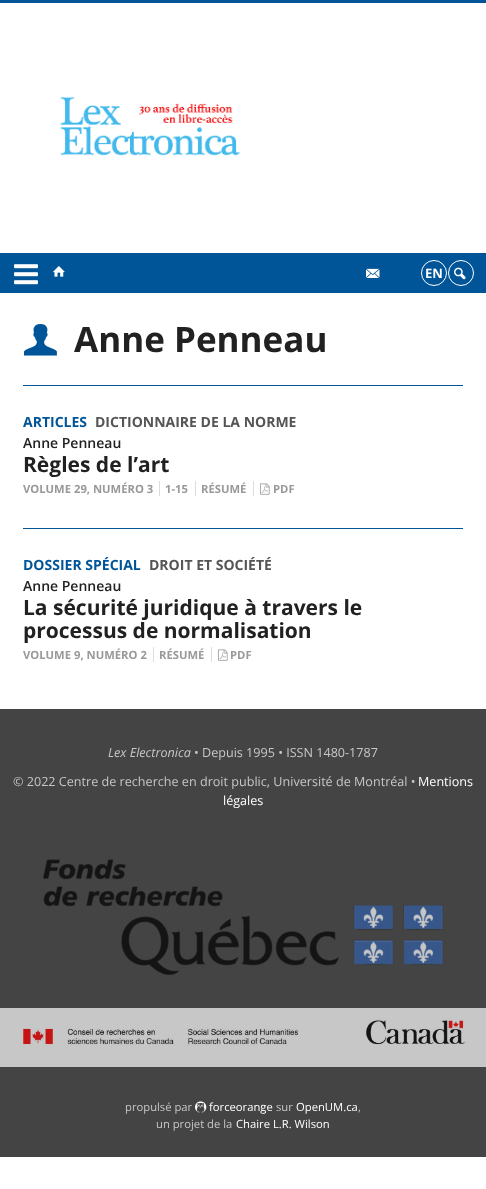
<svg xmlns="http://www.w3.org/2000/svg" width="486" height="1189">
	<rect width="100%" height="100%" fill="#FFFFFF" />
	<rect x="0" y="0" width="486" height="3" fill="#005599" />
	<image x="60" y="96" width="180" height="60" href="assets/img1.png" />
	<rect x="0" y="253" width="486" height="40" fill="#005599" />
	<image x="14" y="264" width="24" height="21" href="assets/img2.png" />
	<image x="53" y="266" width="12" height="11" href="assets/img3.png" />
	<image x="366" y="268" width="14" height="10" href="assets/img4.png" />
	<circle cx="434" cy="273" r="12.5" fill="none" stroke="#FFFFFF" />
	<text x="425" y="278" font-family="Open Sans" font-size="13" font-weight="700" fill="#FFFFFF">EN</text>
	<circle cx="461" cy="273" r="12.5" fill="none" stroke="#FFFFFF" />
	<image x="454" y="267" width="12" height="13" href="assets/img5.png" />
	<image x="24" y="324" width="33" height="32" href="assets/img6.png" />
	<text x="74" y="352" font-family="Open Sans" font-size="35" font-weight="700" fill="#212121">Anne Penneau</text>
	<rect x="23" y="385" width="440" height="1" fill="#005599" />
	<text x="23" y="427" font-family="Open Sans" font-size="14" font-weight="700" fill="#005599">ARTICLES</text>
	<text x="95" y="427" font-family="Open Sans" font-size="14" font-weight="700" fill="#555555">DICTIONNAIRE DE LA NORME</text>
	<text x="23" y="448" font-family="Open Sans" font-size="14" font-weight="600" fill="#212121">Anne Penneau</text>
	<text x="23" y="472" font-family="Open Sans" font-size="21" font-weight="700" fill="#212121">Règles de l’art</text>
	<text x="23" y="493" font-family="Open Sans" font-size="11.25" font-weight="700" fill="#999999">VOLUME 29, NUMÉRO 3</text>
	<rect x="159" y="481" width="1" height="15" fill="#DDDDDD" />
	<text x="165" y="493" font-family="Open Sans" font-size="11.25" font-weight="700" fill="#999999">1-15</text>
	<rect x="195" y="481" width="1" height="15" fill="#DDDDDD" />
	<text x="201" y="493" font-family="Open Sans" font-size="11.25" font-weight="700" fill="#999999">RÉSUMÉ</text>
	<rect x="253" y="481" width="1" height="15" fill="#DDDDDD" />
	<image x="260" y="483" width="10" height="12" href="assets/img7.png" />
	<text x="273" y="493" font-family="Open Sans" font-size="11.25" font-weight="700" fill="#999999">PDF</text>
	<rect x="23" y="528" width="440" height="1" fill="#005599" />
	<text x="23" y="570" font-family="Open Sans" font-size="14" font-weight="700" fill="#005599">DOSSIER SPÉCIAL</text>
	<text x="149" y="570" font-family="Open Sans" font-size="14" font-weight="700" fill="#555555">DROIT ET SOCIÉTÉ</text>
	<text x="23" y="591" font-family="Open Sans" font-size="14" font-weight="600" fill="#212121">Anne Penneau</text>
	<g font-family="Open Sans" font-size="21" font-weight="700" fill="#212121">
		<text x="23" y="615">La sécurité juridique à travers le</text>
		<text x="23" y="638">processus de normalisation</text>
	</g>
	<text x="23" y="659" font-family="Open Sans" font-size="11.25" font-weight="700" fill="#999999">VOLUME 9, NUMÉRO 2</text>
	<rect x="153" y="647" width="1" height="15" fill="#DDDDDD" />
	<text x="159" y="659" font-family="Open Sans" font-size="11.25" font-weight="700" fill="#999999">RÉSUMÉ</text>
	<rect x="211" y="647" width="1" height="15" fill="#DDDDDD" />
	<image x="218" y="649" width="10" height="12" href="assets/img7.png" />
	<text x="230" y="659" font-family="Open Sans" font-size="11.25" font-weight="700" fill="#999999">PDF</text>
	<rect x="0" y="709" width="486" height="448" fill="#444444" />
	<text x="108" y="757" font-family="Open Sans" font-size="12.6" font-style="italic" fill="#C7C7C7">Lex Electronica</text>
	<g font-family="Open Sans" font-size="12.6" fill="#C7C7C7">
		<text x="194" y="757">• Depuis 1995 • ISSN 1480-1787</text>
		<text x="13" y="786">© 2022 Centre de recherche en droit public, Université de Montréal •</text>
	</g>
	<g font-family="Open Sans" font-size="12.6" fill="#FFFFFF">
		<text x="418" y="786">Mentions</text>
		<text x="223" y="805">légales</text>
	</g>
	<image x="43" y="859" width="400" height="116" href="assets/img8.png" />
	<image x="0" y="1008" width="486" height="59" href="assets/img9.png" />
	<text x="125" y="1111" font-family="Open Sans" font-size="11.25" fill="#C7C7C7">propulsé par</text>
	<image x="195" y="1101" width="12" height="12" href="assets/img10.png" />
	<text x="209" y="1111" font-family="Open Sans" font-size="11.25" fill="#FFFFFF">forceorange</text>
	<text x="276" y="1111" font-family="Open Sans" font-size="11.25" fill="#C7C7C7">sur</text>
	<text x="296" y="1111" font-family="Open Sans" font-size="11.25" fill="#FFFFFF">OpenUM.ca</text>
	<g font-family="Open Sans" font-size="11.25" fill="#C7C7C7">
		<text x="358" y="1111">,</text>
		<text x="156" y="1128">un projet de la</text>
	</g>
	<text x="236" y="1128" font-family="Open Sans" font-size="11.25" fill="#FFFFFF">Chaire L.R. Wilson</text>
</svg>
